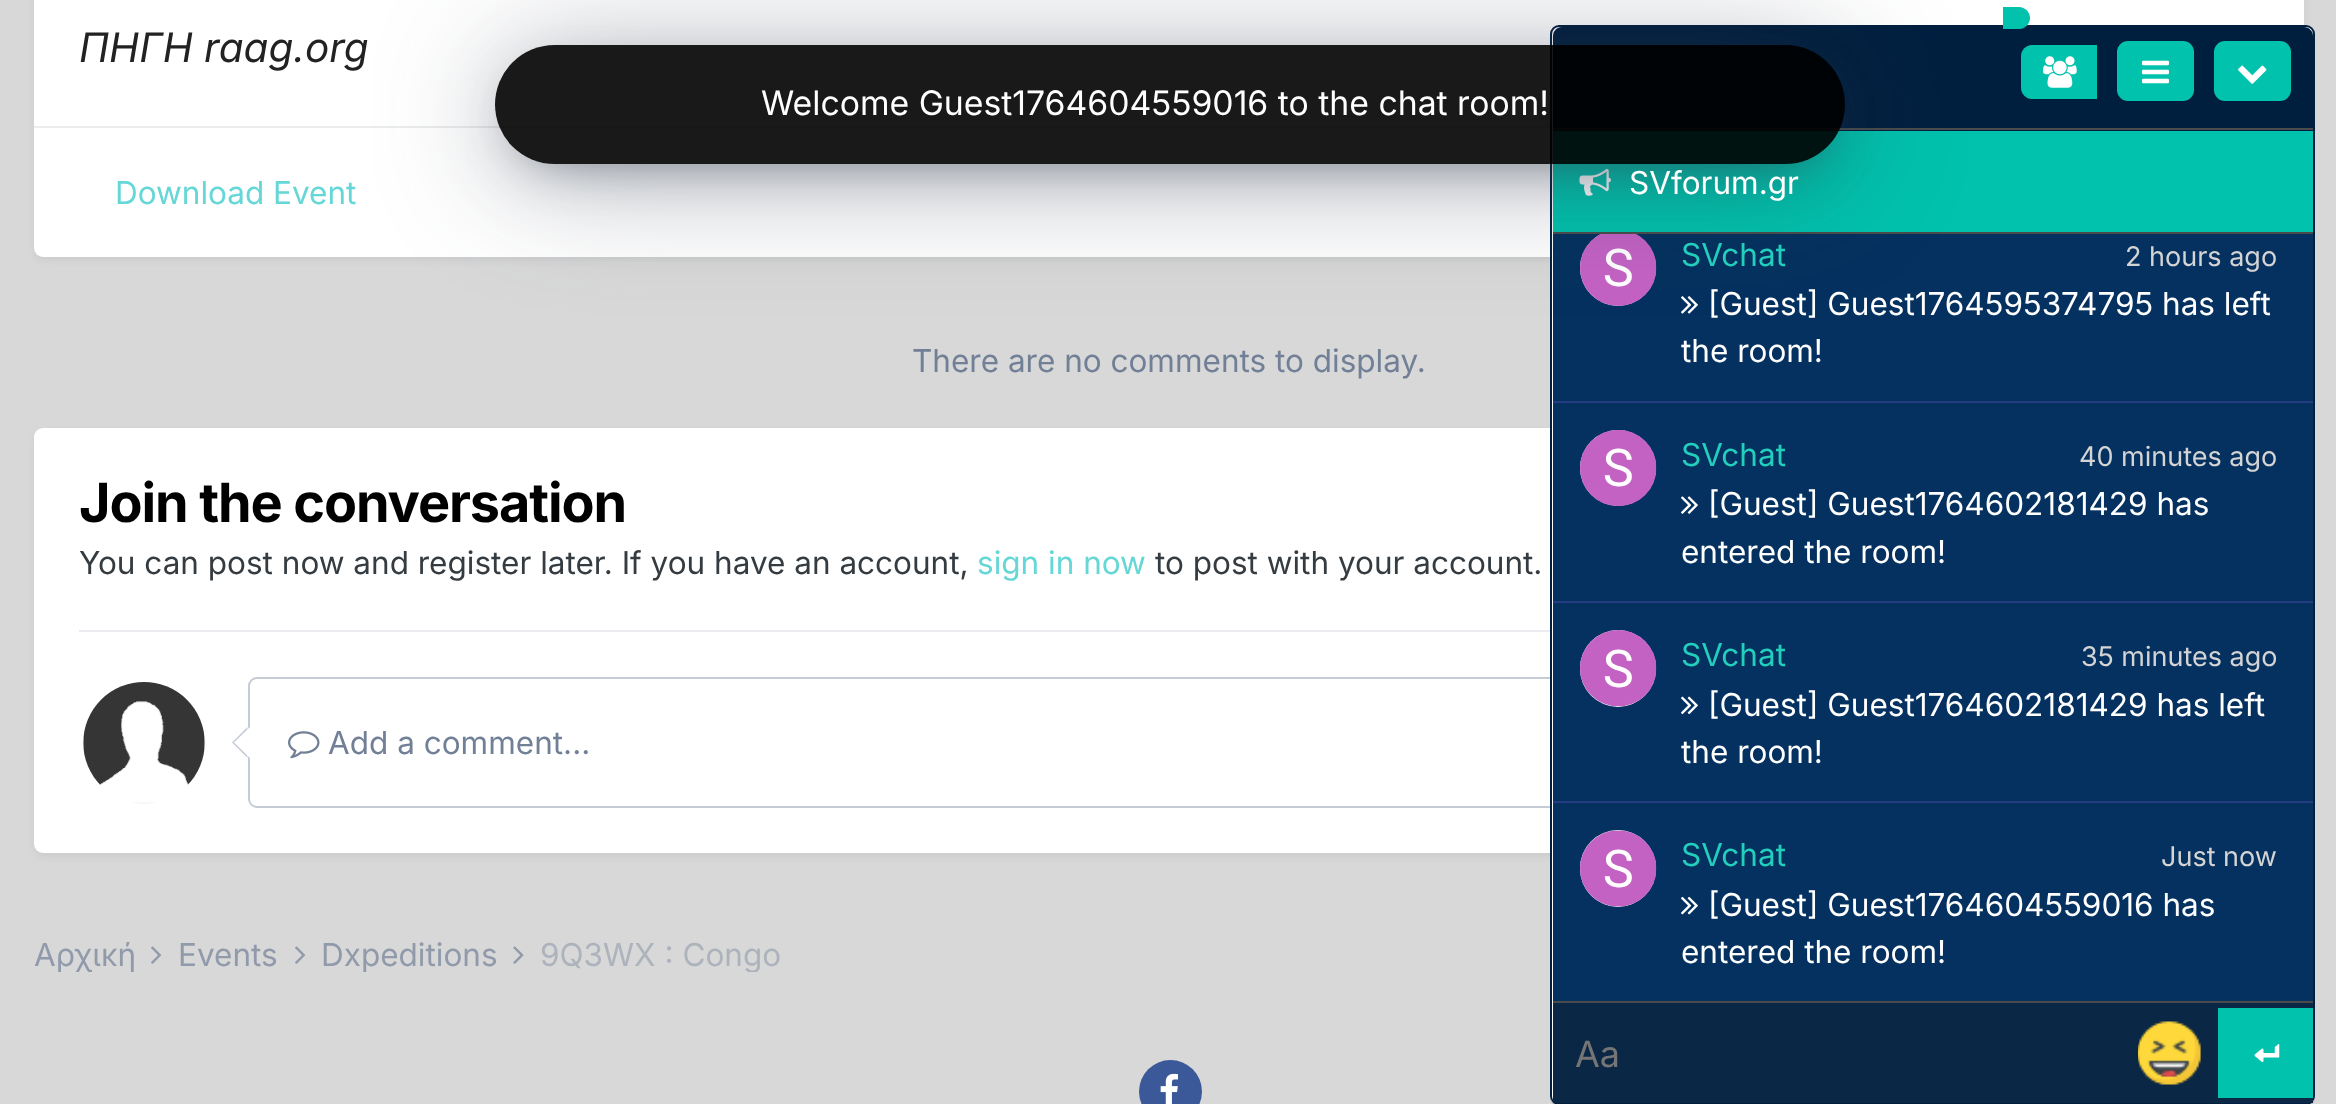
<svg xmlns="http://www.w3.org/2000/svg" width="2336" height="1104">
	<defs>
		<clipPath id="clip1"><rect x="34" y="938" width="135" height="34" /></clipPath>
		<clipPath id="clip2"><rect x="320" y="938" width="211" height="34" /></clipPath>
		<clipPath id="clip3"><rect x="540" y="938" width="241" height="34" /></clipPath>
		<clipPath id="clip4"><rect x="1553" y="234" width="760" height="767" /></clipPath>
		<clipPath id="clip5"><path d="M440 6H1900V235H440ZM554.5 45H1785.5C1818.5 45 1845 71.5 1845 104.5C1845 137.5 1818.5 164 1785.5 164H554.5C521.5 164 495 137.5 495 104.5C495 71.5 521.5 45 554.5 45Z" clip-rule="evenodd" /></clipPath>
		<clipPath id="clip6"><path d="M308 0H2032V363H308ZM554.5 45H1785.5C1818.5 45 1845 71.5 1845 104.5C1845 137.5 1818.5 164 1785.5 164H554.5C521.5 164 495 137.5 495 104.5C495 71.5 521.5 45 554.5 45Z" clip-rule="evenodd" /></clipPath>
	</defs>
	<rect width="100%" height="100%" fill="#D8D8D8" />
	<rect x="36" y="-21" width="2266" height="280" rx="7" fill="#2D3748" fill-opacity="0.1" filter="blur(4.5px)" />
	<rect x="34" y="-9" width="2270" height="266" rx="9" fill="#FFFFFF" />
	<text x="79" y="62" font-family="Inter" font-size="40.5" font-style="italic" fill="#222222">ΠΗΓΗ raag.org</text>
	<rect x="34" y="126" width="1516" height="2" fill="#EBECEC" />
	<text x="115" y="204" font-family="Inter" font-size="31.5" fill="#64D7D6">Download Event</text>
	<text x="912" y="372" font-family="Inter" font-size="31.5" fill="#718096">There are no comments to display.</text>
	<rect x="36" y="434" width="2266" height="421" rx="7" fill="#2D3748" fill-opacity="0.1" filter="blur(4.5px)" />
	<rect x="34" y="428" width="2270" height="425" rx="9" fill="#FFFFFF" />
	<rect x="79" y="630" width="1471" height="2" fill="#EAECEF" />
	<text x="79" y="522" font-family="Inter" font-size="54" font-weight="700" letter-spacing="-1.1" fill="#000000">Join the conversation</text>
	<text x="79" y="574" font-family="Inter" font-size="31.5" fill="#353C41">You can post now and register later. If you have an account,</text>
	<text x="977" y="574" font-family="Inter" font-size="31.5" fill="#64D7D6">sign in now</text>
	<text x="1155" y="574" font-family="Inter" font-size="31.5" fill="#353C41">to post with your account.</text>
	<image x="83" y="682" width="122" height="122" href="assets/img1.png" />
	<rect x="249" y="678" width="2009" height="129" rx="8" fill="none" stroke="#C6CCD5" stroke-width="2" />
	<path d="M247.5 727V758L232 742.5Z" fill="#C6CCD5" />
	<path d="M250 727V758L234 742.5Z" fill="#FFFFFF" />
	<image x="288" y="731" width="32" height="28" href="assets/img2.png" />
	<text x="328" y="754" font-family="Inter" font-size="31.5" fill="#718096">Add a comment...</text>
	<g clip-path="url(#clip1)">
		<text x="34" y="966" font-family="Inter" font-size="31.5" fill="#909AAA">Αρχική</text>
	</g>
	<image x="151" y="946" width="11" height="18" href="assets/img3.png" />
	<text x="178" y="966" font-family="Inter" font-size="31.5" fill="#909AAA">Events</text>
	<image x="295" y="946" width="11" height="18" href="assets/img3.png" />
	<g clip-path="url(#clip2)">
		<text x="321" y="966" font-family="Inter" font-size="31.5" fill="#909AAA">Dxpeditions</text>
	</g>
	<image x="513" y="946" width="11" height="18" href="assets/img4.png" />
	<g clip-path="url(#clip3)">
		<text x="540" y="966" font-family="Inter" font-size="31.5" fill="#ADB3BC">9Q3WX : Congo</text>
	</g>
	<path d="M1550 34V1098C1550 1103 1554 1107 1559 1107H2306C2311 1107 2315 1103 2315 1098C2314 1102 2310 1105 2306 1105H1559C1554 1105 1550 1101 1550 1096Z" fill="#C2C2C2" />
	<rect x="1551" y="26" width="763" height="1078" rx="8" fill="#FFFFFF" stroke="#001F3F" stroke-width="2" />
	<path d="M1562 27H2304C2309 27 2313 31 2313 36V131H1553V36C1553 31 1557 27 1562 27Z" fill="#001F3F" />
	<rect x="1553" y="128" width="760" height="2" fill="#4B4B4B" />
	<rect x="1553" y="131" width="760" height="101" fill="#00C2AD" />
	<rect x="1553" y="232" width="760" height="2" fill="#4B4B4B" />
	<image x="1579" y="168" width="32" height="28" href="assets/img8.png" />
	<rect x="1553" y="234" width="760" height="767" fill="#04315F" />
	<g clip-path="url(#clip4)">
		<circle cx="1618" cy="268" r="38" fill="#FFFFFF" />
	</g>
	<image x="1580" y="234" width="77" height="72" href="assets/img9.png" />
	<g clip-path="url(#clip5)">
		<rect x="522" y="88" width="1296" height="65" rx="32.5" fill="#2D3748" fill-opacity="0.7" filter="blur(27px)" />
	</g>
	<path d="M2032 45H2097V99H2032C2026 99 2021 94 2021 88V56C2021 50 2026 45 2032 45Z" fill="#00C2AD" />
	<path d="M2003 7H2019C2025 7 2030 12 2030 18C2030 24 2025 29 2019 29H2003Z" fill="#00C2AD" />
	<image x="1681" y="296" width="17" height="18" href="assets/img10.png" />
	<g clip-path="url(#clip6)">
		<rect x="495" y="56" width="1350" height="120" rx="60" fill="#2D3748" fill-opacity="0.4" filter="blur(62px)" />
	</g>
	<rect x="495" y="45" width="1350" height="119" rx="59.5" fill="#000000" fill-opacity="0.9" />
	<text x="761" y="115" font-family="Inter" font-size="33.75" fill="#FFFFFF">Welcome Guest1764604559016 to the chat room!</text>
	<image x="2043" y="56" width="34" height="32" href="assets/img5.png" />
	<rect x="2117" y="41" width="77" height="60" rx="11" fill="#00C2AD" />
	<image x="2142" y="60" width="27" height="24" href="assets/img6.png" />
	<rect x="2214" y="41" width="77" height="60" rx="11" fill="#00C2AD" />
	<image x="2238" y="65" width="29" height="19" href="assets/img7.png" />
	<text x="1629" y="194" font-family="Inter" font-size="31.5" fill="#FFFFFF">SVforum.gr</text>
	<rect x="1553" y="401" width="760" height="2" fill="#253D80" />
	<text x="1681" y="266" font-family="Inter" font-size="31.5" fill="#23CFBC">SVchat</text>
	<text x="2125" y="266" font-family="Inter" font-size="27" fill="#D4D4D4">2 hours ago</text>
	<g font-family="Inter" font-size="31.5" fill="#FFFFFF">
		<text x="1708" y="315">[Guest] Guest1764595374795 has left</text>
		<text x="1681" y="362">the room!</text>
	</g>
	<rect x="1553" y="601" width="760" height="2" fill="#253D80" />
	<circle cx="1618" cy="468" r="38" fill="#FFFFFF" />
	<image x="1580" y="430" width="77" height="76" href="assets/img11.png" />
	<text x="1681" y="466" font-family="Inter" font-size="31.5" fill="#23CFBC">SVchat</text>
	<text x="2079" y="466" font-family="Inter" font-size="27" fill="#D4D4D4">40 minutes ago</text>
	<image x="1681" y="496" width="17" height="18" href="assets/img12.png" />
	<g font-family="Inter" font-size="31.5" fill="#FFFFFF">
		<text x="1708" y="515">[Guest] Guest1764602181429 has</text>
		<text x="1681" y="563">entered the room!</text>
	</g>
	<rect x="1553" y="801" width="760" height="2" fill="#253D80" />
	<rect x="1580" y="630" width="76" height="77" rx="38" fill="#FFFFFF" />
	<image x="1580" y="630" width="77" height="77" href="assets/img13.png" />
	<text x="1681" y="666" font-family="Inter" font-size="31.5" fill="#23CFBC">SVchat</text>
	<text x="2081" y="666" font-family="Inter" font-size="27" fill="#D4D4D4">35 minutes ago</text>
	<image x="1681" y="696" width="17" height="19" href="assets/img14.png" />
	<g font-family="Inter" font-size="31.5" fill="#FFFFFF">
		<text x="1708" y="716">[Guest] Guest1764602181429 has left</text>
		<text x="1681" y="763">the room!</text>
	</g>
	<rect x="1580" y="830" width="76" height="77" rx="38" fill="#FFFFFF" />
	<image x="1580" y="830" width="77" height="77" href="assets/img15.png" />
	<text x="1681" y="866" font-family="Inter" font-size="31.5" fill="#23CFBC">SVchat</text>
	<text x="2161" y="866" font-family="Inter" font-size="27" fill="#D4D4D4">Just now</text>
	<image x="1681" y="896" width="17" height="19" href="assets/img16.png" />
	<g font-family="Inter" font-size="31.5" fill="#FFFFFF">
		<text x="1708" y="916">[Guest] Guest1764604559016 has</text>
		<text x="1681" y="963">entered the room!</text>
	</g>
	<rect x="1553" y="1003" width="760" height="100" fill="#0A2745" />
	<rect x="1553" y="1001" width="760" height="2" fill="#4B4B4B" />
	<text x="1575" y="1067" font-family="Inter" font-size="36" fill="#757575">Aa</text>
	<image x="2138" y="1021" width="63" height="64" href="assets/img17.png" />
	<rect x="2218" y="1008" width="95" height="90" fill="#00C2AD" />
	<image x="2254" y="1044" width="26" height="18" href="assets/img18.png" />
	<circle cx="1170.5" cy="1091.5" r="31.5" fill="#3B5998" />
	<image x="1160" y="1073" width="18" height="31" href="assets/img19.png" />
</svg>
